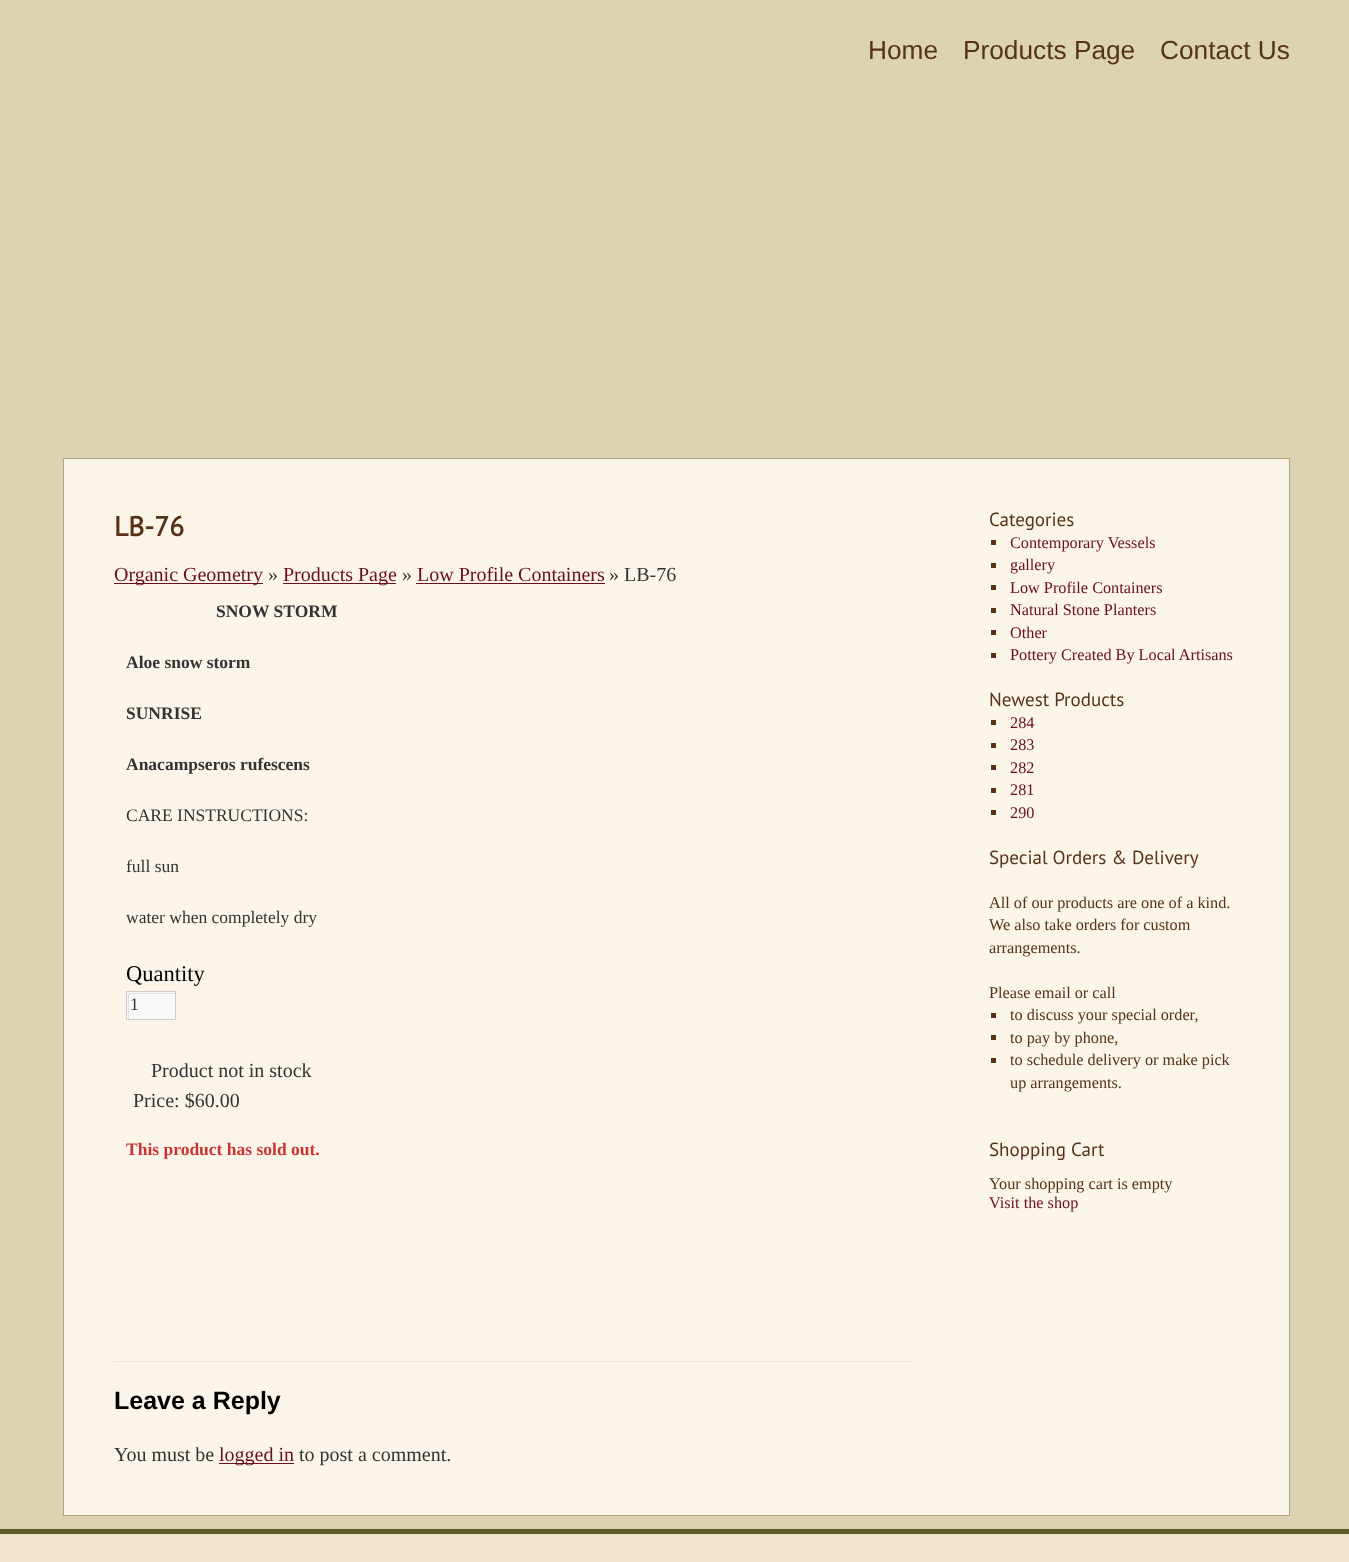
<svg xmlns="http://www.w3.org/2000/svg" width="1349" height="1562">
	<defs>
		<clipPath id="clip1"><rect x="128" y="993" width="47" height="26" /></clipPath>
	</defs>
	<rect width="100%" height="100%" fill="#DBD3B1" />
	<g font-family="Liberation Sans" font-size="26.25" fill="#573219">
		<text x="868" y="59">Home</text>
		<text x="963" y="59">Products Page</text>
		<text x="1160" y="59">Contact Us</text>
	</g>
	<rect x="63.5" y="458.5" width="1226" height="1057" fill="#FBF4E8" stroke="#B0A577" />
	<text x="114" y="536" font-family="PT Sans" font-size="27.5" font-weight="700" fill="#573219">LB-76</text>
	<rect x="114" y="583" width="149" height="1" fill="#6A0F1E" />
	<text x="114" y="581" font-family="Liberation Serif" font-size="20" fill="#6A0F1E">Organic Geometry</text>
	<text x="268" y="581" font-family="Liberation Serif" font-size="20" fill="#333333">»</text>
	<rect x="283" y="583" width="113" height="1" fill="#6A0F1E" />
	<text x="283" y="581" font-family="Liberation Serif" font-size="20" fill="#6A0F1E">Products Page</text>
	<text x="402" y="581" font-family="Liberation Serif" font-size="20" fill="#333333">»</text>
	<text x="417" y="581" font-family="Liberation Serif" font-size="20" fill="#6A0F1E">Low Profile Containers</text>
	<rect x="416" y="583" width="189" height="1" fill="#6A0F1E" />
	<text x="609" y="581" font-family="Liberation Serif" font-size="20" fill="#333333">» LB-76</text>
	<g font-family="Liberation Serif" font-size="17.5" font-weight="700" fill="#333333">
		<text x="216" y="617">SNOW STORM</text>
		<text x="126" y="668">Aloe snow storm</text>
		<text x="126" y="719">SUNRISE</text>
		<text x="126" y="770">Anacampseros rufescens</text>
	</g>
	<g font-family="Liberation Serif" font-size="17.5" fill="#333333">
		<text x="126" y="821">CARE INSTRUCTIONS:</text>
		<text x="126" y="872">full sun</text>
		<text x="126" y="923">water when completely dry</text>
	</g>
	<text x="126" y="981" font-family="Liberation Serif" font-size="22.5" fill="#000000">Quantity</text>
	<rect x="127" y="992" width="48" height="27" fill="#F9F9F9" />
	<g clip-path="url(#clip1)">
		<path d="M4 869H299V1142H4ZM129 994H176V1020H129Z" fill="#E0E0E0" fill-rule="evenodd" />
	</g>
	<rect x="126.5" y="991.5" width="49" height="28" fill="none" stroke="#CCCCCC" />
	<text x="130" y="1010" font-family="Liberation Serif" font-size="17.5" fill="#333333">1</text>
	<g font-family="Liberation Serif" font-size="20" fill="#333333">
		<text x="151" y="1077">Product not in stock</text>
		<text x="133" y="1107">Price: $60.00</text>
	</g>
	<text x="126" y="1155" font-family="Liberation Serif" font-size="17.5" font-weight="700" fill="#CC3333">This product has sold out.</text>
	<rect x="114" y="1361" width="800" height="1" fill="#E7E7E7" />
	<text x="114" y="1409" font-family="Liberation Sans" font-size="25" font-weight="700" fill="#000000">Leave a Reply</text>
	<text x="114" y="1461" font-family="Liberation Serif" font-size="20" fill="#333333">You must be</text>
	<rect x="219" y="1463" width="75" height="1" fill="#6A0F1E" />
	<text x="219" y="1461" font-family="Liberation Serif" font-size="20" fill="#6A0F1E">logged in</text>
	<text x="299" y="1461" font-family="Liberation Serif" font-size="20" fill="#333333">to post a comment.</text>
	<text x="989" y="526" font-family="PT Sans" font-size="19" fill="#573219">Categories</text>
	<rect x="991" y="540" width="5" height="5" fill="#573219" />
	<text x="1010" y="548" font-family="Liberation Serif" font-size="16.25" fill="#6A0F1E">Contemporary Vessels</text>
	<rect x="991" y="563" width="5" height="5" fill="#573219" />
	<text x="1010" y="570" font-family="Liberation Serif" font-size="16.25" fill="#6A0F1E">gallery</text>
	<rect x="991" y="585" width="5" height="5" fill="#573219" />
	<text x="1010" y="593" font-family="Liberation Serif" font-size="16.25" fill="#6A0F1E">Low Profile Containers</text>
	<rect x="991" y="608" width="5" height="5" fill="#573219" />
	<text x="1010" y="615" font-family="Liberation Serif" font-size="16.25" fill="#6A0F1E">Natural Stone Planters</text>
	<rect x="991" y="630" width="5" height="5" fill="#573219" />
	<text x="1010" y="638" font-family="Liberation Serif" font-size="16.25" fill="#6A0F1E">Other</text>
	<rect x="991" y="653" width="5" height="5" fill="#573219" />
	<text x="1010" y="660" font-family="Liberation Serif" font-size="16.25" fill="#6A0F1E">Pottery Created By Local Artisans</text>
	<text x="989" y="706" font-family="PT Sans" font-size="19" fill="#573219">Newest Products</text>
	<rect x="991" y="720" width="5" height="5" fill="#573219" />
	<text x="1010" y="728" font-family="Liberation Serif" font-size="16.25" fill="#6A0F1E">284</text>
	<rect x="991" y="743" width="5" height="5" fill="#573219" />
	<text x="1010" y="750" font-family="Liberation Serif" font-size="16.25" fill="#6A0F1E">283</text>
	<rect x="991" y="765" width="5" height="5" fill="#573219" />
	<text x="1010" y="773" font-family="Liberation Serif" font-size="16.25" fill="#6A0F1E">282</text>
	<rect x="991" y="788" width="5" height="5" fill="#573219" />
	<text x="1010" y="795" font-family="Liberation Serif" font-size="16.25" fill="#6A0F1E">281</text>
	<rect x="991" y="810" width="5" height="5" fill="#573219" />
	<text x="1010" y="818" font-family="Liberation Serif" font-size="16.25" fill="#6A0F1E">290</text>
	<text x="989" y="864" font-family="PT Sans" font-size="19" fill="#573219">Special Orders &amp; Delivery</text>
	<g font-family="Liberation Serif" font-size="16.25" fill="#573219">
		<text x="989" y="908">All of our products are one of a kind.</text>
		<text x="989" y="930">We also take orders for custom</text>
		<text x="989" y="953">arrangements.</text>
		<text x="989" y="998">Please email or call</text>
	</g>
	<rect x="991" y="1013" width="5" height="5" fill="#573219" />
	<text x="1010" y="1020" font-family="Liberation Serif" font-size="16.25" fill="#573219">to discuss your special order,</text>
	<rect x="991" y="1035" width="5" height="5" fill="#573219" />
	<text x="1010" y="1043" font-family="Liberation Serif" font-size="16.25" fill="#573219">to pay by phone,</text>
	<rect x="991" y="1058" width="5" height="5" fill="#573219" />
	<g font-family="Liberation Serif" font-size="16.25" fill="#573219">
		<text x="1010" y="1065">to schedule delivery or make pick</text>
		<text x="1010" y="1088">up arrangements.</text>
	</g>
	<text x="989" y="1156" font-family="PT Sans" font-size="19" fill="#573219">Shopping Cart</text>
	<text x="989" y="1189" font-family="Liberation Serif" font-size="16.25" fill="#573219">Your shopping cart is empty</text>
	<text x="989" y="1208" font-family="Liberation Serif" font-size="16.25" fill="#6A0F1E">Visit the shop</text>
	<rect x="0" y="1534" width="1349" height="28" fill="#F0E4CD" />
	<rect x="0" y="1529" width="1349" height="5" fill="#5B5C27" />
</svg>
